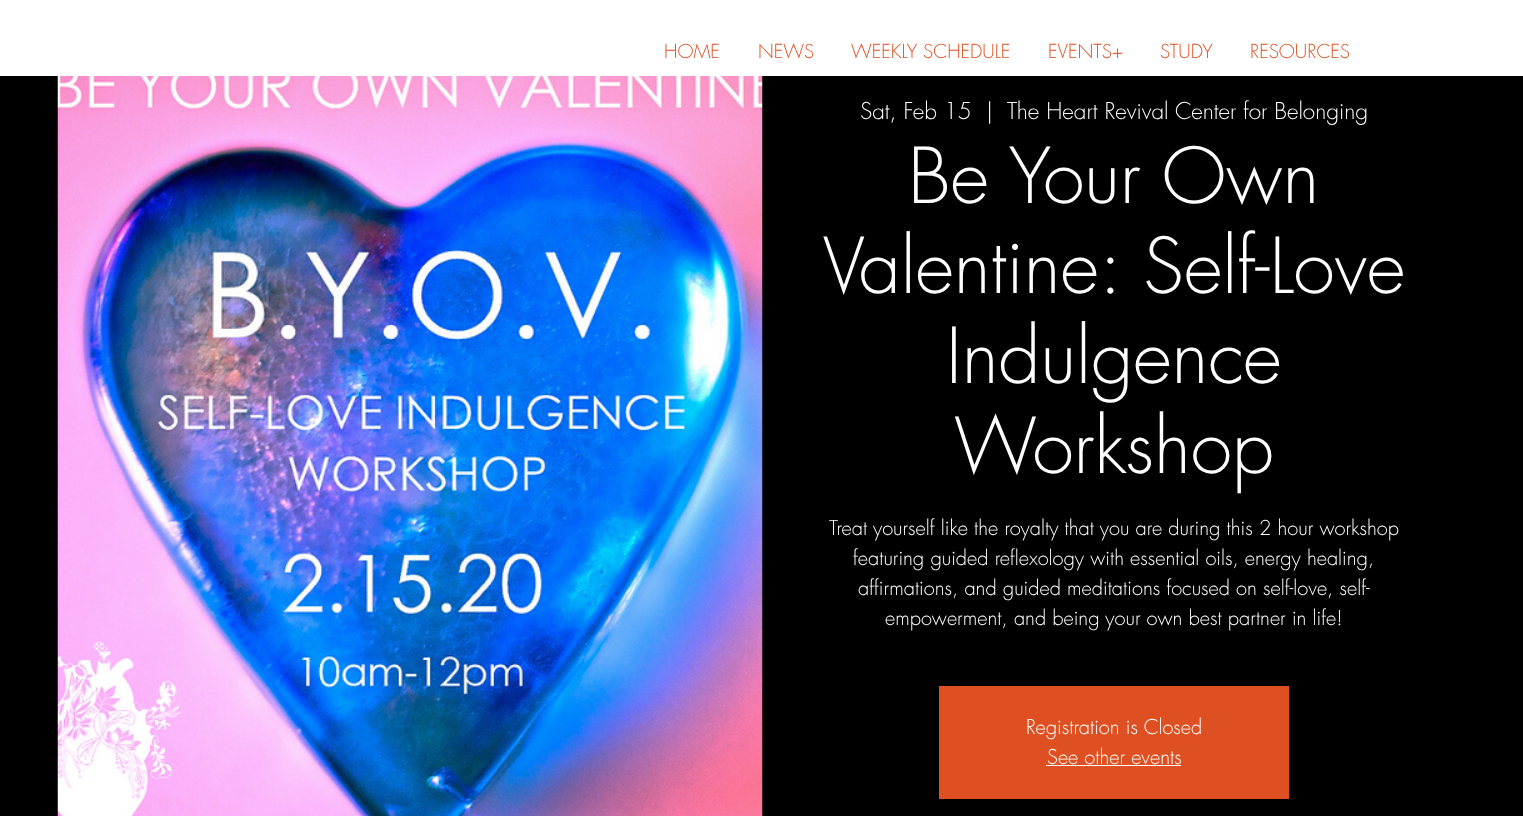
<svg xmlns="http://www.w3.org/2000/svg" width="1523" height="816">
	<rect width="100%" height="100%" fill="#000000" />
	<rect x="0" y="0" width="1523" height="76" fill="#FFFFFF" />
	<g font-family="futura" font-size="18.75" font-weight="300" fill="#DE5021">
		<text x="664" y="58">HOME</text>
		<text x="758" y="58">NEWS</text>
		<text x="851" y="58">WEEKLY SCHEDULE</text>
		<text x="1048" y="58">EVENTS+</text>
		<text x="1160" y="58">STUDY</text>
		<text x="1250" y="58">RESOURCES</text>
	</g>
	<image x="57" y="76" width="706" height="740" href="assets/img1.png" />
	<g font-family="futura" font-size="22.5" font-weight="300" fill="#FFFFFF">
		<text x="860" y="119">Sat, Feb 15</text>
		<text x="986" y="119">|</text>
		<text x="1007" y="119">The Heart Revival Center for Belonging</text>
	</g>
	<g font-family="futura" font-size="75" font-weight="300" fill="#FFFFFF">
		<text x="908" y="203">Be Your Own</text>
		<text x="823" y="293">Valentine: Self-Love</text>
		<text x="946" y="383">Indulgence</text>
		<text x="954" y="473">Workshop</text>
	</g>
	<g font-family="futura" font-size="20" font-weight="300" fill="#FFFFFF">
		<text x="829" y="535">Treat yourself like the royalty that you are during this 2 hour workshop</text>
		<text x="853" y="565">featuring guided reflexology with essential oils, energy healing,</text>
		<text x="858" y="595">affirmations, and guided meditations focused on self-love, self-</text>
		<text x="885" y="625">empowerment, and being your own best partner in life!</text>
	</g>
	<rect x="939" y="686" width="350" height="113" fill="#DE5021" />
	<g font-family="futura" font-size="20" font-weight="300" fill="#FFFFFF">
		<text x="1026" y="734">Registration is Closed</text>
		<text x="1047" y="764">See other events</text>
	</g>
	<rect x="1046" y="765" width="135" height="1" fill="#FFFFFF" />
</svg>
